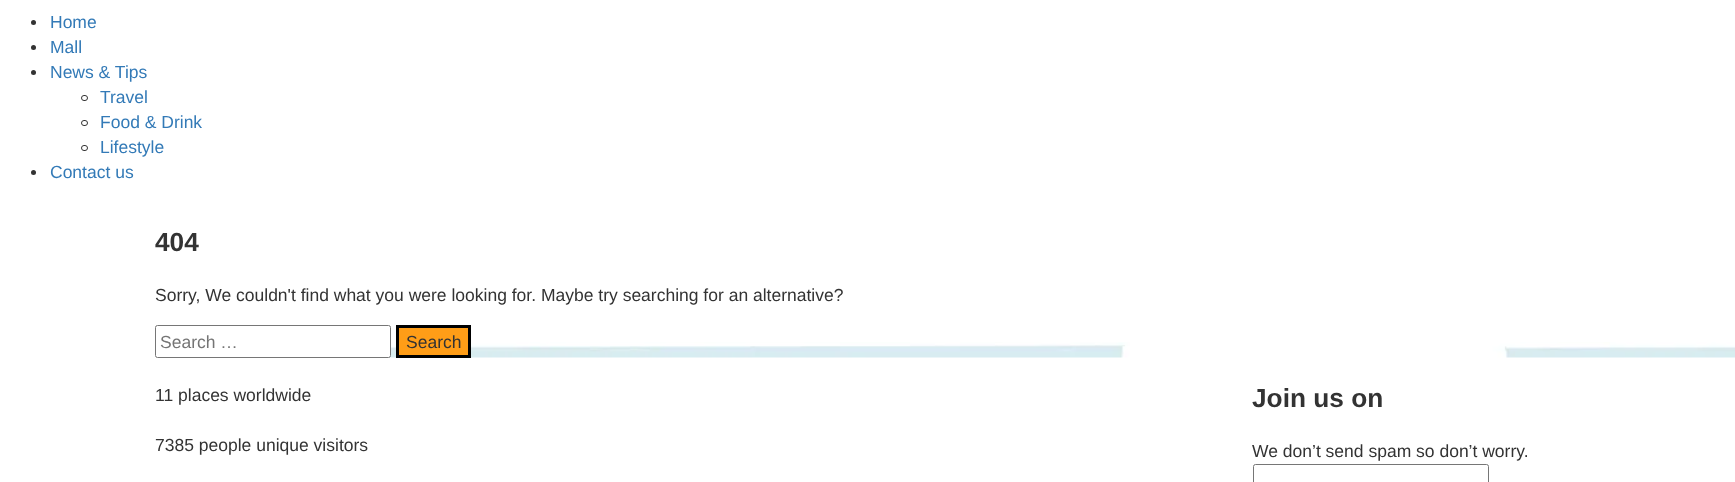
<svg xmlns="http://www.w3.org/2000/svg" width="1735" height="482">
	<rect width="100%" height="100%" fill="#FFFFFF" />
	<circle cx="33.5" cy="22.5" r="2.5" fill="#333333" />
	<text x="50" y="28" font-family="Liberation Sans" font-size="17.5" fill="#337AB7">Home</text>
	<circle cx="33.5" cy="47.5" r="2.5" fill="#333333" />
	<text x="50" y="53" font-family="Liberation Sans" font-size="17.5" fill="#337AB7">Mall</text>
	<circle cx="33.5" cy="72.5" r="2.5" fill="#333333" />
	<text x="50" y="78" font-family="Liberation Sans" font-size="17.5" fill="#337AB7">News &amp; Tips</text>
	<rect x="81.5" y="95.5" width="6" height="5" rx="2.5" fill="none" stroke="#333333" />
	<text x="100" y="103" font-family="Liberation Sans" font-size="17.5" fill="#337AB7">Travel</text>
	<rect x="81.5" y="120.5" width="6" height="5" rx="2.5" fill="none" stroke="#333333" />
	<text x="100" y="128" font-family="Liberation Sans" font-size="17.5" fill="#337AB7">Food &amp; Drink</text>
	<rect x="81.5" y="145.5" width="6" height="5" rx="2.5" fill="none" stroke="#333333" />
	<text x="100" y="153" font-family="Liberation Sans" font-size="17.5" fill="#337AB7">Lifestyle</text>
	<circle cx="33.5" cy="172.5" r="2.5" fill="#333333" />
	<text x="50" y="178" font-family="Liberation Sans" font-size="17.5" fill="#337AB7">Contact us</text>
	<image x="388" y="342" width="1347" height="16" href="assets/img1.png" />
	<text x="155" y="251" font-family="Liberation Sans" font-size="26.25" font-weight="700" fill="#333333">404</text>
	<text x="155" y="301" font-family="Liberation Sans" font-size="17.5" fill="#333333">Sorry, We couldn't find what you were looking for. Maybe try searching for an alternative?</text>
	<rect x="155.5" y="325.5" width="235" height="32" rx="2" fill="#FFFFFF" stroke="#767676" />
	<text x="160" y="348" font-family="Liberation Sans" font-size="17.5" fill="#757575">Search …</text>
	<rect x="397.5" y="326.5" width="72" height="30" fill="#FF9D17" stroke="#000000" stroke-width="3" />
	<g font-family="Liberation Sans" font-size="17.5" fill="#333333">
		<text x="406" y="348">Search</text>
		<text x="155" y="401">11 places worldwide</text>
		<text x="155" y="451">7385 people unique visitors</text>
	</g>
	<text x="1252" y="407" font-family="Liberation Sans" font-size="26.25" font-weight="700" fill="#333333">Join us on</text>
	<text x="1252" y="457" font-family="Liberation Sans" font-size="17.5" fill="#333333">We don’t send spam so don’t worry.</text>
	<rect x="1253.5" y="464.5" width="235" height="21" rx="2" fill="none" stroke="#767676" />
</svg>
